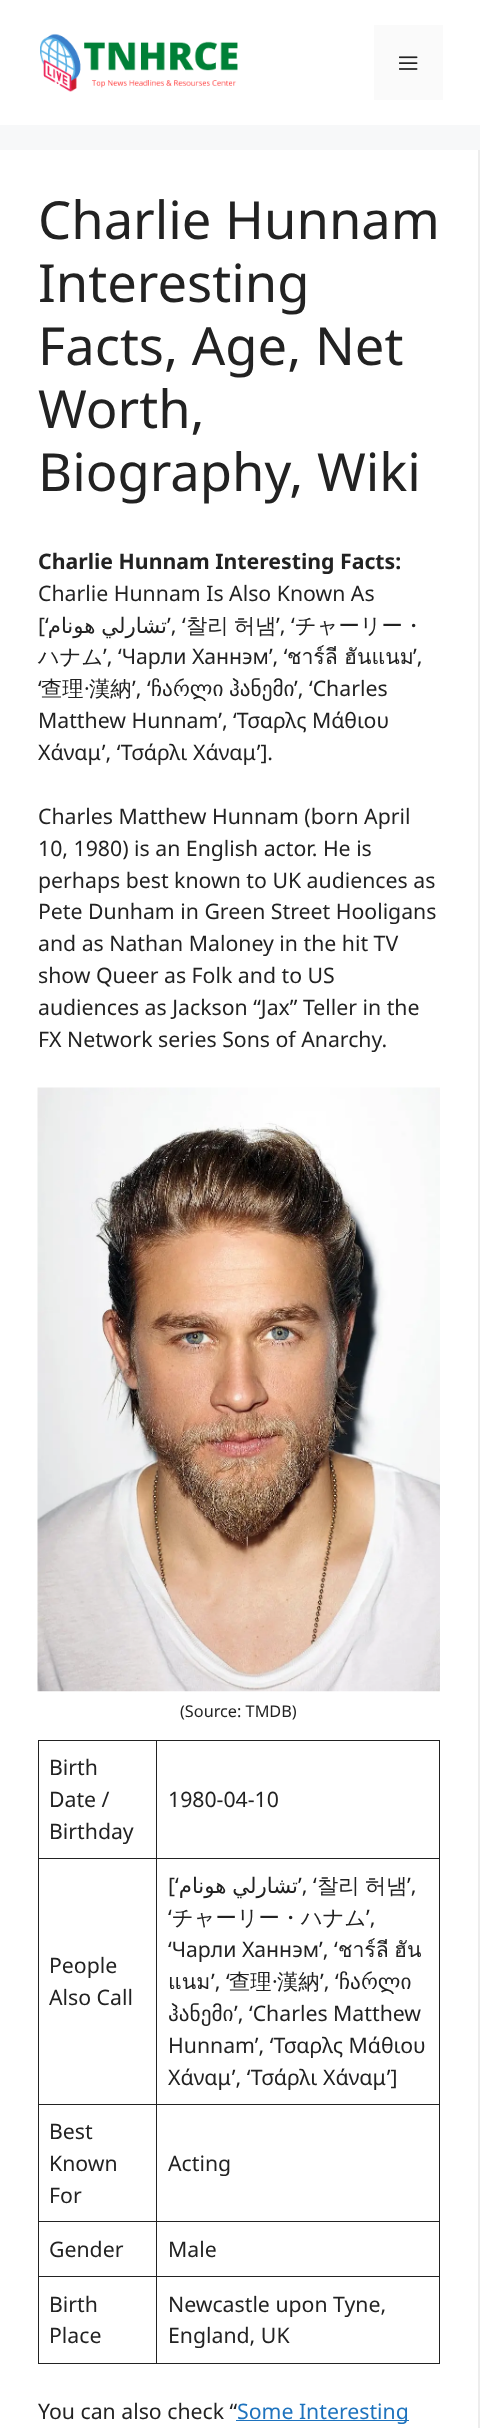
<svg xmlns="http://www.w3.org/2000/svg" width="480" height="2428">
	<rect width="100%" height="100%" fill="#F7F8F9" />
	<rect x="0" y="0" width="480" height="125" fill="#FFFFFF" />
	<image x="40" y="33" width="198" height="59" href="assets/img1.png" />
	<rect x="374" y="25" width="69" height="75" fill="#FAFAFA" />
	<image x="399" y="56" width="19" height="14" href="assets/img2.png" />
	<rect x="0" y="150" width="478" height="2278" fill="#FFFFFF" />
	<path d="M480 150V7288L478 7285V150Z" fill="#EDEDED" />
	<g font-family="Noto Sans" font-size="52.5" fill="#222222">
		<text x="38" y="239">Charlie Hunnam</text>
		<text x="38" y="302">Interesting</text>
		<text x="38" y="365">Facts, Age, Net</text>
		<text x="38" y="428">Worth,</text>
		<text x="38" y="491">Biography, Wiki</text>
	</g>
	<text x="38" y="569" font-family="Noto Sans" font-size="21.25" font-weight="700" fill="#222222">Charlie Hunnam Interesting Facts:</text>
	<g font-family="Noto Sans" font-size="21.25" fill="#222222">
		<text x="38" y="601">Charlie Hunnam Is Also Known As</text>
		<text x="38" y="633">[‘</text>
	</g>
	<text x="167" y="633" word-spacing="-1" font-family="DejaVu Sans" font-size="21.25" direction="rtl" fill="#222222">تشارلي هونام</text>
	<text x="167" y="633" font-family="Noto Sans" font-size="21.25" fill="#222222">’, ‘</text>
	<g font-family="WenQuanYi Zen Hei" font-size="21.25" font-weight="500" fill="#222222">
		<text x="186" y="633">찰리</text>
		<text x="234" y="633">허냄</text>
	</g>
	<text x="276" y="633" font-family="Noto Sans" font-size="21.25" fill="#222222">’, ‘</text>
	<g font-family="WenQuanYi Zen Hei" font-size="21.25" font-weight="500" fill="#222222">
		<text x="295" y="633">チャーリー・</text>
		<text x="38" y="664">ハナム</text>
	</g>
	<text x="103" y="664" font-family="Noto Sans" font-size="21.25" fill="#222222">’, ‘Чарли Ханнэм’, ‘</text>
	<g font-family="Loma" font-size="21.25" fill="#222222">
		<text x="287" y="664">ชาร์ลี</text>
		<text x="344" y="664">ฮันแนม</text>
	</g>
	<g font-family="Noto Sans" font-size="21.25" fill="#222222">
		<text x="413" y="664">’,</text>
		<text x="38" y="696">‘</text>
	</g>
	<text x="41" y="696" font-family="WenQuanYi Zen Hei" font-size="21.25" font-weight="500" fill="#222222">查理</text>
	<text x="84" y="696" font-family="Noto Sans" font-size="21.25" fill="#222222">·</text>
	<text x="89" y="696" font-family="WenQuanYi Zen Hei" font-size="21.25" font-weight="500" fill="#222222">漢納</text>
	<text x="132" y="696" font-family="Noto Sans" font-size="21.25" fill="#222222">’, ‘</text>
	<g font-family="DejaVu Sans" font-size="21.25" fill="#222222">
		<text x="151" y="696">ჩარლი</text>
		<text x="229" y="696">ჰანემი</text>
	</g>
	<g font-family="Noto Sans" font-size="21.25" fill="#222222">
		<text x="294" y="696">’, ‘Charles</text>
		<text x="38" y="728">Matthew Hunnam’, ‘Τσαρλς Μάθιου</text>
		<text x="38" y="760">Χάναμ’, ‘Τσάρλι Χάναμ’].</text>
		<text x="38" y="824">Charles Matthew Hunnam (born April</text>
		<text x="38" y="856">10, 1980) is an English actor. He is</text>
		<text x="38" y="888">perhaps best known to UK audiences as</text>
		<text x="38" y="919">Pete Dunham in Green Street Hooligans</text>
		<text x="38" y="951">and as Nathan Maloney in the hit TV</text>
		<text x="38" y="983">show Queer as Folk and to US</text>
		<text x="38" y="1015">audiences as Jackson “Jax” Teller in the</text>
		<text x="38" y="1047">FX Network series Sons of Anarchy.</text>
	</g>
	<image x="37" y="1087" width="403" height="605" href="assets/img3.png" />
	<text x="180" y="1717" font-family="Noto Sans" font-size="16.25" fill="#222222">(Source: TMDB)</text>
	<rect x="156" y="1740" width="284" height="1" fill="#222222" />
	<rect x="156" y="1858" width="284" height="1" fill="#222222" />
	<rect x="156" y="2104" width="284" height="1" fill="#222222" />
	<rect x="156" y="2221" width="284" height="1" fill="#222222" />
	<rect x="156" y="2276" width="284" height="1" fill="#222222" />
	<rect x="439" y="2276" width="1" height="88" fill="#222222" />
	<rect x="156" y="2363" width="284" height="1" fill="#222222" />
	<rect x="156" y="2276" width="1" height="88" fill="#222222" />
	<rect x="38" y="2276" width="120" height="1" fill="#222222" />
	<rect x="156" y="2221" width="1" height="57" fill="#222222" />
	<rect x="38" y="2221" width="120" height="1" fill="#222222" />
	<rect x="156" y="2104" width="1" height="119" fill="#222222" />
	<rect x="38" y="2104" width="120" height="1" fill="#222222" />
	<rect x="156" y="1858" width="1" height="247" fill="#222222" />
	<rect x="38" y="1858" width="120" height="1" fill="#222222" />
	<rect x="156" y="1740" width="1" height="119" fill="#222222" />
	<rect x="38" y="1740" width="120" height="1" fill="#222222" />
	<rect x="38" y="2363" width="120" height="1" fill="#222222" />
	<rect x="38" y="2276" width="1" height="88" fill="#222222" />
	<rect x="38" y="2221" width="1" height="57" fill="#222222" />
	<rect x="38" y="2104" width="1" height="119" fill="#222222" />
	<rect x="38" y="1858" width="1" height="247" fill="#222222" />
	<rect x="38" y="1740" width="1" height="119" fill="#222222" />
	<g font-family="Noto Sans" font-size="21.25" fill="#222222">
		<text x="49" y="1775">Birth</text>
		<text x="49" y="1807">Date /</text>
		<text x="49" y="1839">Birthday</text>
	</g>
	<rect x="439" y="2221" width="1" height="57" fill="#222222" />
	<rect x="439" y="2104" width="1" height="119" fill="#222222" />
	<rect x="439" y="1858" width="1" height="247" fill="#222222" />
	<rect x="439" y="1740" width="1" height="119" fill="#222222" />
	<g font-family="Noto Sans" font-size="21.25" fill="#222222">
		<text x="168" y="1807">1980-04-10</text>
		<text x="49" y="1973">People</text>
		<text x="49" y="2005">Also Call</text>
		<text x="168" y="1893">[‘</text>
	</g>
	<text x="298" y="1893" word-spacing="-1" font-family="DejaVu Sans" font-size="21.25" direction="rtl" fill="#222222">تشارلي هونام</text>
	<text x="298" y="1893" font-family="Noto Sans" font-size="21.25" fill="#222222">’, ‘</text>
	<g font-family="WenQuanYi Zen Hei" font-size="21.25" font-weight="500" fill="#222222">
		<text x="317" y="1893">찰리</text>
		<text x="365" y="1893">허냄</text>
	</g>
	<g font-family="Noto Sans" font-size="21.25" fill="#222222">
		<text x="407" y="1893">’,</text>
		<text x="168" y="1925">‘</text>
	</g>
	<text x="172" y="1925" font-family="WenQuanYi Zen Hei" font-size="21.25" font-weight="500" fill="#222222">チャーリー・ハナム</text>
	<g font-family="Noto Sans" font-size="21.25" fill="#222222">
		<text x="366" y="1925">’,</text>
		<text x="168" y="1957">‘Чарли Ханнэм’, ‘</text>
	</g>
	<g font-family="Loma" font-size="21.25" fill="#222222">
		<text x="338" y="1957">ชาร์ลี</text>
		<text x="394" y="1957">ฮัน</text>
		<text x="168" y="1989">แนม</text>
	</g>
	<text x="211" y="1989" font-family="Noto Sans" font-size="21.25" fill="#222222">’, ‘</text>
	<text x="229" y="1989" font-family="WenQuanYi Zen Hei" font-size="21.25" font-weight="500" fill="#222222">查理</text>
	<text x="272" y="1989" font-family="Noto Sans" font-size="21.25" fill="#222222">·</text>
	<text x="277" y="1989" font-family="WenQuanYi Zen Hei" font-size="21.25" font-weight="500" fill="#222222">漢納</text>
	<text x="320" y="1989" font-family="Noto Sans" font-size="21.25" fill="#222222">’, ‘</text>
	<g font-family="DejaVu Sans" font-size="21.25" fill="#222222">
		<text x="339" y="1989">ჩარლი</text>
		<text x="168" y="2021">ჰანემი</text>
	</g>
	<g font-family="Noto Sans" font-size="21.25" fill="#222222">
		<text x="234" y="2021">’, ‘Charles Matthew</text>
		<text x="168" y="2053">Hunnam’, ‘Τσαρλς Μάθιου</text>
		<text x="168" y="2085">Χάναμ’, ‘Τσάρλι Χάναμ’]</text>
		<text x="49" y="2139">Best</text>
		<text x="49" y="2171">Known</text>
		<text x="49" y="2203">For</text>
		<text x="168" y="2171">Acting</text>
		<text x="49" y="2257">Gender</text>
		<text x="168" y="2257">Male</text>
		<text x="49" y="2312">Birth</text>
		<text x="49" y="2343">Place</text>
		<text x="168" y="2312">Newcastle upon Tyne,</text>
		<text x="168" y="2343">England, UK</text>
		<text x="38" y="2419">You can also check “</text>
	</g>
	<rect x="236" y="2420" width="173" height="1" fill="#1E73BE" />
	<text x="237" y="2419" font-family="Noto Sans" font-size="21.25" fill="#1E73BE">Some Interesting</text>
</svg>
